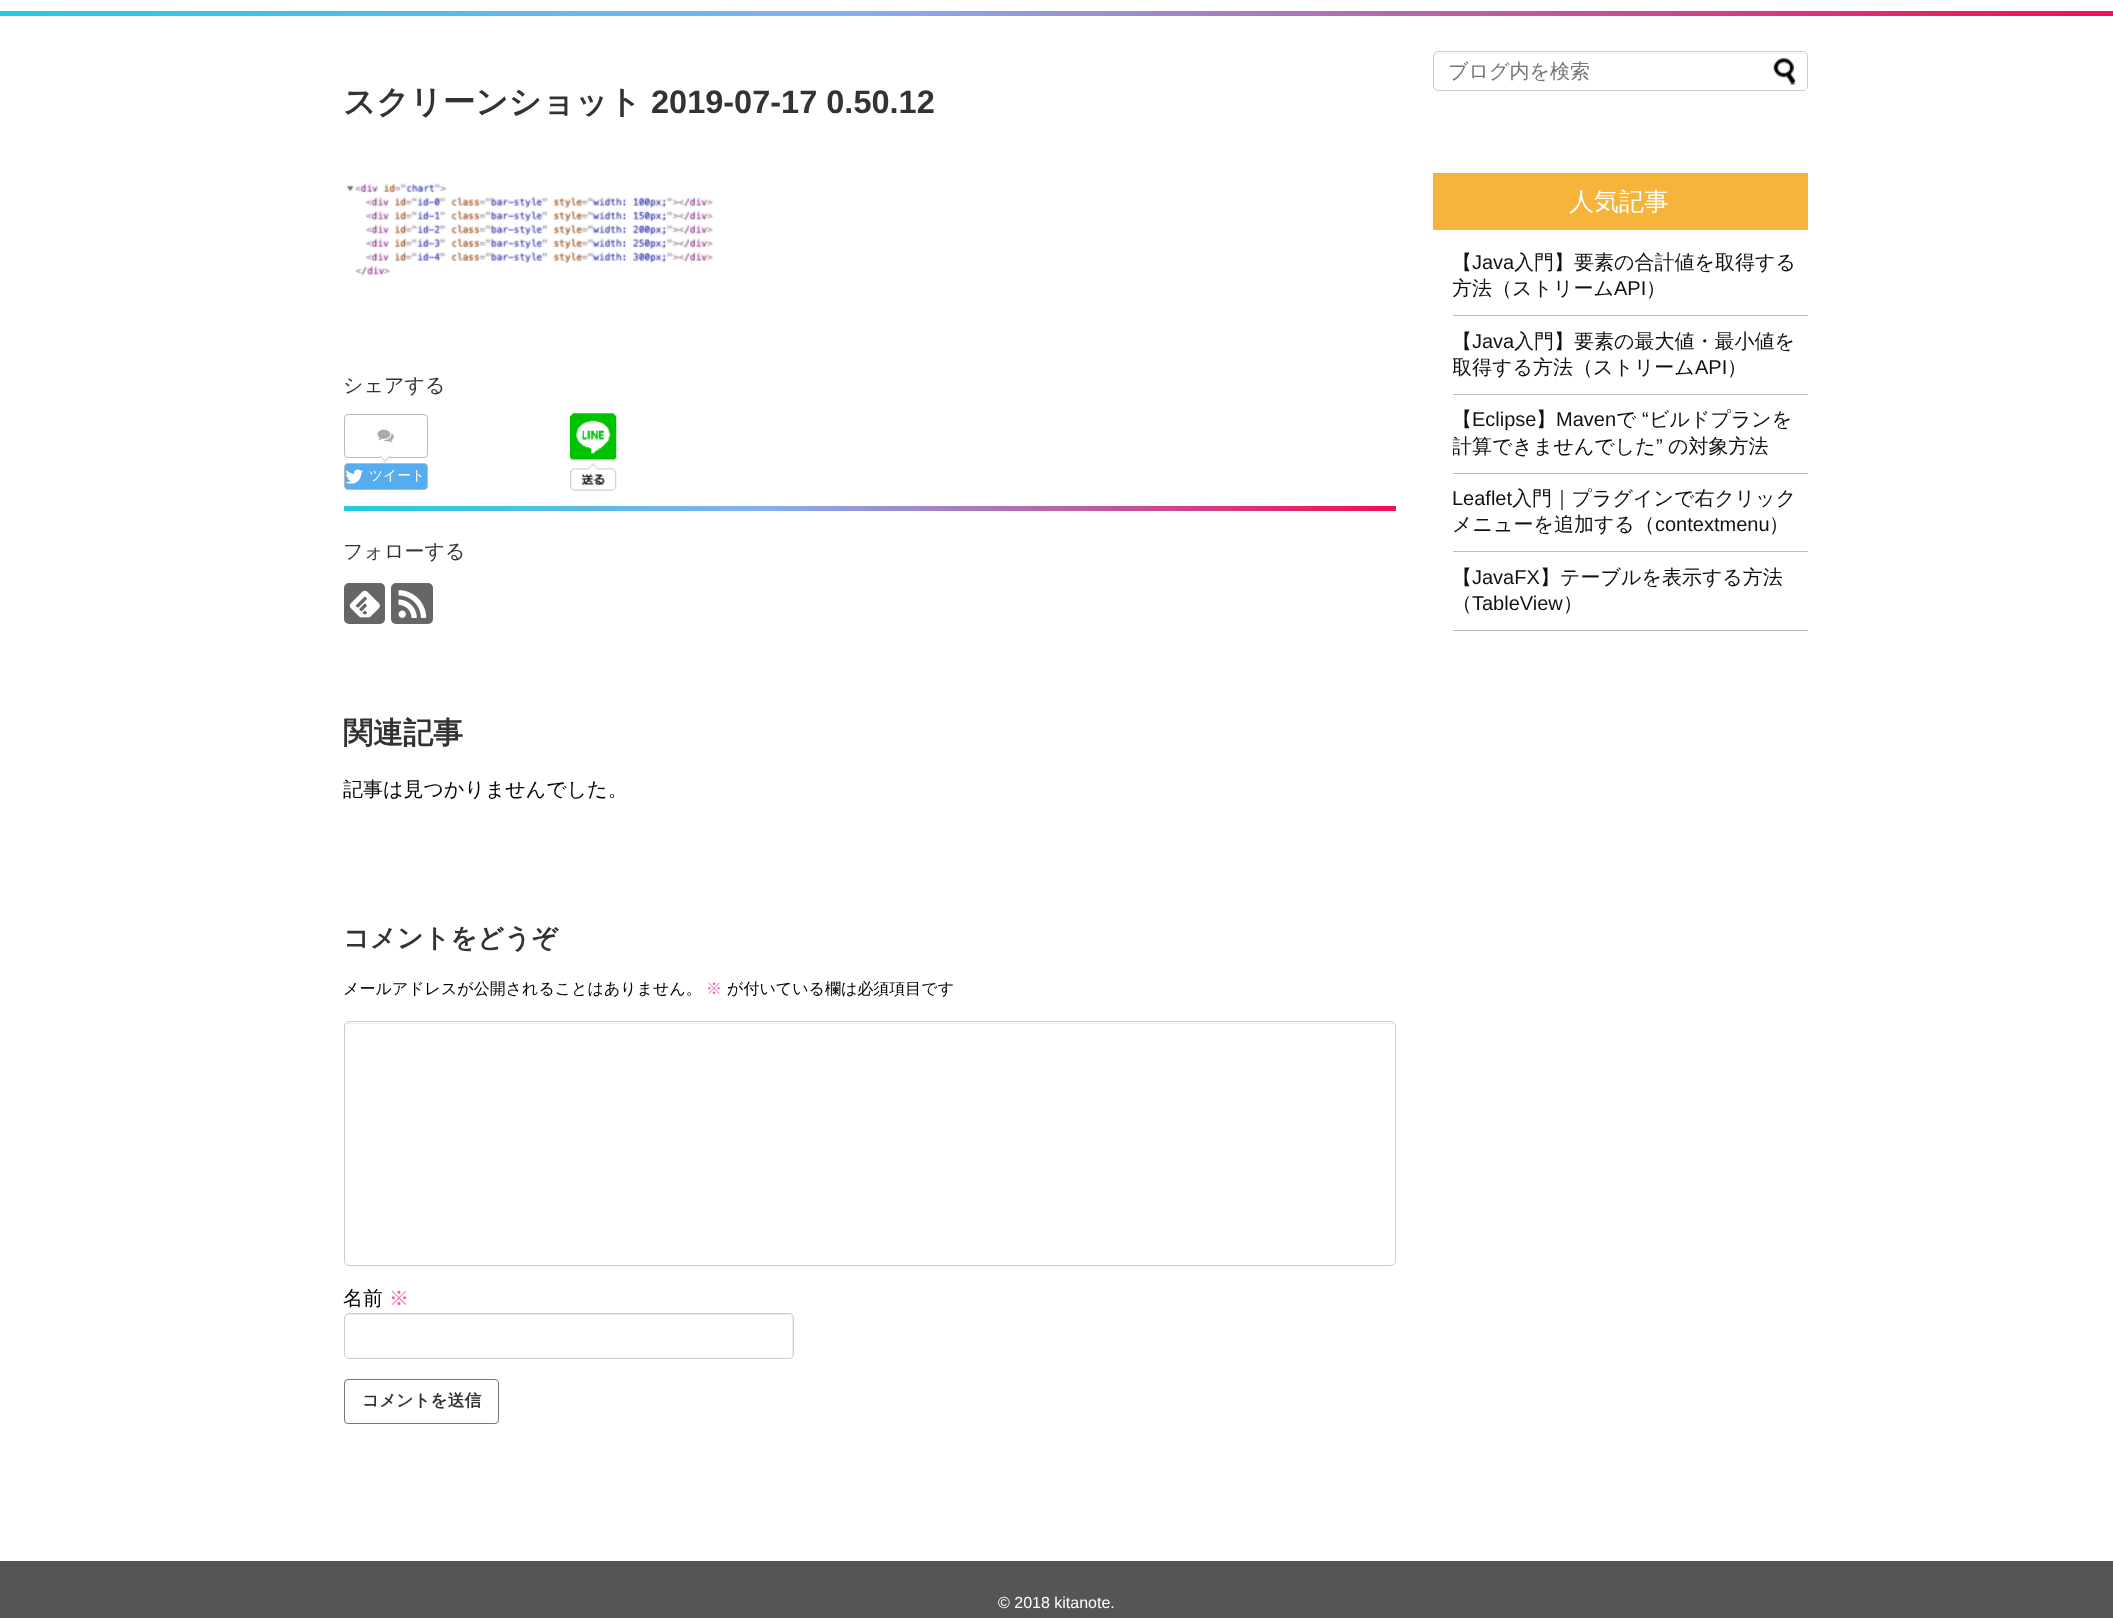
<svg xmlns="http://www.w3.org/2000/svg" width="2113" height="1618">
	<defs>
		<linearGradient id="g1" gradientUnits="userSpaceOnUse" x1="0" y1="14" x2="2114" y2="14"><stop offset="0" stop-color="#25CBDC" /><stop offset="0.4" stop-color="#84B0F1" /><stop offset="1" stop-color="#F30D54" /></linearGradient>
		<linearGradient id="g2" gradientUnits="userSpaceOnUse" x1="344" y1="509" x2="1396" y2="509"><stop offset="0" stop-color="#25CBDC" /><stop offset="0.4" stop-color="#84B0F1" /><stop offset="1" stop-color="#F30D54" /></linearGradient>
		<clipPath id="clip1"><rect x="1453" y="250" width="355" height="65" /></clipPath>
		<clipPath id="clip2"><rect x="1453" y="329" width="355" height="65" /></clipPath>
		<clipPath id="clip3"><rect x="1453" y="408" width="355" height="65" /></clipPath>
	</defs>
	<rect width="100%" height="100%" fill="#FFFFFF" />
	<rect x="0" y="11" width="2113" height="5" fill="url(#g1)" />
	<text x="343" y="113" font-family="WenQuanYi Zen Hei" font-size="32.5" font-weight="700" fill="#333333">スクリーンショット</text>
	<text x="651" y="113" font-family="Liberation Sans" font-size="32.5" font-weight="700" fill="#333333">2019-07-17 0.50.12</text>
	<image x="346" y="183" width="368" height="93" href="assets/img1.png" />
	<text x="343" y="392" font-family="WenQuanYi Zen Hei" font-size="20" font-weight="500" fill="#333333">シェアする</text>
	<rect x="344.5" y="414.5" width="83" height="43" rx="3.5" fill="none" stroke="#BBBBBB" />
	<image x="377" y="429" width="17" height="14" href="assets/img2.png" />
	<path d="M379 456H391L385 462.5Z" fill="#DDDDDD" />
	<path d="M381 456H389L385 460Z" fill="#FFFFFF" />
	<rect x="344.5" y="463.5" width="83" height="26" rx="3.5" fill="#55ACEE" stroke="#BBBBBB" />
	<image x="345" y="469" width="18" height="15" href="assets/img3.png" />
	<text x="369" y="480" font-family="WenQuanYi Zen Hei" font-size="13.75" font-weight="500" fill="#FFFFFF">ツイート</text>
	<image x="570" y="413" width="47" height="78" href="assets/img4.png" />
	<rect x="344" y="506" width="1052" height="5" fill="url(#g2)" />
	<text x="343" y="558" font-family="WenQuanYi Zen Hei" font-size="20" font-weight="500" fill="#333333">フォローする</text>
	<rect x="344" y="583" width="41" height="41" rx="5" fill="#666666" />
	<image x="349" y="590" width="31" height="28" href="assets/img5.png" />
	<rect x="391" y="583" width="42" height="41" rx="5" fill="#666666" />
	<image x="398" y="590" width="29" height="28" href="assets/img6.png" />
	<text x="343" y="743" font-family="WenQuanYi Zen Hei" font-size="30" font-weight="700" fill="#333333">関連記事</text>
	<text x="343" y="796" font-family="WenQuanYi Zen Hei" font-size="20" font-weight="500" fill="#000000">記事は見つかりませんでした。</text>
	<text x="343" y="947" font-family="WenQuanYi Zen Hei" font-size="26.25" font-weight="700" fill="#333333">コメントをどうぞ</text>
	<text x="343" y="994" font-family="WenQuanYi Zen Hei" font-size="16" font-weight="500" fill="#000000">メールアドレスが公開されることはありません。</text>
	<text x="706" y="994" font-family="WenQuanYi Zen Hei" font-size="16" font-weight="500" fill="#FE56AA">※</text>
	<text x="727" y="994" font-family="WenQuanYi Zen Hei" font-size="16" font-weight="500" fill="#000000">が付いている欄は必須項目です</text>
	<path d="M349 1024H1391C1393 1024 1395 1025 1395 1028C1395 1025 1394 1023 1391 1023H349C346 1023 345 1025 345 1028C345 1025 347 1024 349 1024Z" fill="#ECECEC" />
	<rect x="344.5" y="1021.5" width="1051" height="244" rx="4.5" fill="none" stroke="#CCCCCC" />
	<text x="343" y="1305" font-family="WenQuanYi Zen Hei" font-size="20" font-weight="500" fill="#000000">名前</text>
	<text x="389" y="1305" font-family="WenQuanYi Zen Hei" font-size="20" font-weight="500" fill="#FE56AA">※</text>
	<path d="M349 1315H789C791 1315 792 1317 792 1319V1357C792 1356 793 1355 793 1354V1318C793 1316 791 1314 789 1314H349C347 1314 345 1316 345 1318V1319C345 1317 347 1315 349 1315Z" fill="#ECECEC" />
	<rect x="344.5" y="1313.5" width="449" height="45" rx="4.5" fill="none" stroke="#CCCCCC" />
	<rect x="344.5" y="1379.5" width="154" height="44" rx="3.5" fill="none" stroke="#777777" />
	<text x="362" y="1406" font-family="WenQuanYi Zen Hei" font-size="16.75" font-weight="700" fill="#333333">コメントを送信</text>
	<path d="M1438 54H1804L1806 55V58C1806 55 1805 53 1802 53H1438C1435 53 1434 55 1434 58C1434 55 1435 54 1438 54Z" fill="#ECECEC" />
	<rect x="1433.5" y="51.5" width="374" height="39" rx="4.5" fill="none" stroke="#CCCCCC" />
	<text x="1448" y="78" font-family="WenQuanYi Zen Hei" font-size="20" font-weight="500" fill="#757575">ブログ内を検索</text>
	<image x="1773" y="58" width="23" height="27" href="assets/img7.png" />
	<rect x="1433" y="173" width="375" height="57" fill="#F6B53A" />
	<text x="1569" y="210" font-family="WenQuanYi Zen Hei" font-size="25" font-weight="500" fill="#FFFFFF">人気記事</text>
	<rect x="1453" y="315" width="355" height="1" fill="#BBBBBB" />
	<text x="1452" y="269" font-family="WenQuanYi Zen Hei" font-size="20" font-weight="500" fill="#111111">【</text>
	<text x="1472" y="269" font-family="Liberation Sans" font-size="20" fill="#111111">Java</text>
	<text x="1514" y="269" font-family="WenQuanYi Zen Hei" font-size="20" font-weight="500" fill="#111111">入門】要素の合計値を取得する</text>
	<g clip-path="url(#clip1)">
		<text x="1452" y="295" font-family="WenQuanYi Zen Hei" font-size="20" font-weight="500" fill="#111111">方法（ストリーム</text>
	</g>
	<text x="1614" y="295" font-family="Liberation Sans" font-size="20" fill="#111111">API</text>
	<text x="1646" y="295" font-family="WenQuanYi Zen Hei" font-size="20" font-weight="500" fill="#111111">）</text>
	<rect x="1453" y="394" width="355" height="1" fill="#BBBBBB" />
	<text x="1452" y="348" font-family="WenQuanYi Zen Hei" font-size="20" font-weight="500" fill="#111111">【</text>
	<text x="1472" y="348" font-family="Liberation Sans" font-size="20" fill="#111111">Java</text>
	<text x="1514" y="348" font-family="WenQuanYi Zen Hei" font-size="20" font-weight="500" fill="#111111">入門】要素の最大値・最小値を</text>
	<g clip-path="url(#clip2)">
		<text x="1452" y="374" font-family="WenQuanYi Zen Hei" font-size="20" font-weight="500" fill="#111111">取得する方法（ストリーム</text>
	</g>
	<text x="1695" y="374" font-family="Liberation Sans" font-size="20" fill="#111111">API</text>
	<text x="1727" y="374" font-family="WenQuanYi Zen Hei" font-size="20" font-weight="500" fill="#111111">）</text>
	<rect x="1453" y="473" width="355" height="1" fill="#BBBBBB" />
	<text x="1452" y="426" font-family="WenQuanYi Zen Hei" font-size="20" font-weight="500" fill="#111111">【</text>
	<text x="1472" y="426" font-family="Liberation Sans" font-size="20" fill="#111111">Eclipse</text>
	<text x="1536" y="426" font-family="WenQuanYi Zen Hei" font-size="20" font-weight="500" fill="#111111">】</text>
	<text x="1556" y="426" font-family="Liberation Sans" font-size="20" fill="#111111">Maven</text>
	<text x="1616" y="426" font-family="WenQuanYi Zen Hei" font-size="20" font-weight="500" fill="#111111">で</text>
	<text x="1642" y="426" font-family="Liberation Sans" font-size="20" fill="#111111">“</text>
	<text x="1649" y="426" font-family="WenQuanYi Zen Hei" font-size="20" font-weight="500" fill="#111111">ビルドプランを</text>
	<g clip-path="url(#clip3)">
		<text x="1452" y="453" font-family="WenQuanYi Zen Hei" font-size="20" font-weight="500" fill="#111111">計算できませんでした</text>
	</g>
	<text x="1656" y="453" font-family="Liberation Sans" font-size="20" fill="#111111">”</text>
	<text x="1668" y="453" font-family="WenQuanYi Zen Hei" font-size="20" font-weight="500" fill="#111111">の対象方法</text>
	<rect x="1453" y="551" width="355" height="1" fill="#BBBBBB" />
	<text x="1452" y="505" font-family="Liberation Sans" font-size="20" fill="#111111">Leaflet</text>
	<g font-family="WenQuanYi Zen Hei" font-size="20" font-weight="500" fill="#111111">
		<text x="1512" y="505">入門｜プラグインで右クリック</text>
		<text x="1452" y="531">メニューを追加する（</text>
	</g>
	<text x="1655" y="531" font-family="Liberation Sans" font-size="20" fill="#111111">contextmenu</text>
	<text x="1769" y="531" font-family="WenQuanYi Zen Hei" font-size="20" font-weight="500" fill="#111111">）</text>
	<rect x="1453" y="630" width="355" height="1" fill="#BBBBBB" />
	<text x="1452" y="584" font-family="WenQuanYi Zen Hei" font-size="20" font-weight="500" fill="#111111">【</text>
	<text x="1472" y="584" font-family="Liberation Sans" font-size="20" fill="#111111">JavaFX</text>
	<g font-family="WenQuanYi Zen Hei" font-size="20" font-weight="500" fill="#111111">
		<text x="1540" y="584">】テーブルを表示する方法</text>
		<text x="1452" y="610">（</text>
	</g>
	<text x="1472" y="610" font-family="Liberation Sans" font-size="20" fill="#111111">TableView</text>
	<text x="1563" y="610" font-family="WenQuanYi Zen Hei" font-size="20" font-weight="500" fill="#111111">）</text>
	<rect x="0" y="1561" width="2113" height="57" fill="#555555" />
	<text x="998" y="1608" font-family="Liberation Sans" font-size="16" fill="#FFFFFF">© 2018 kitanote.</text>
</svg>
